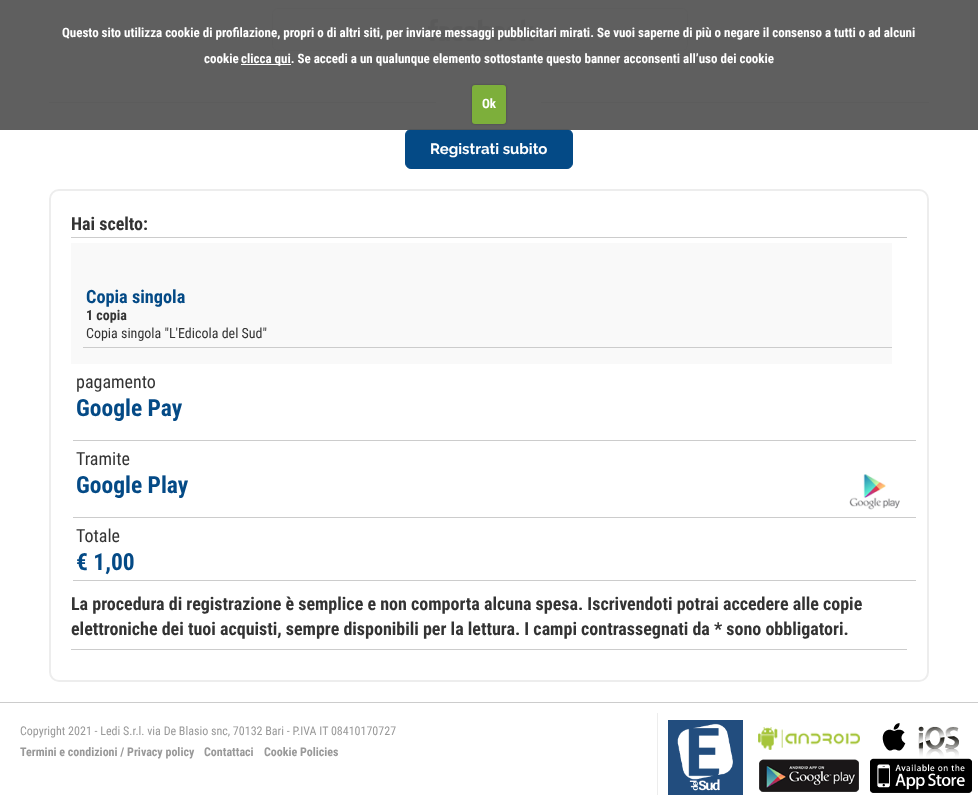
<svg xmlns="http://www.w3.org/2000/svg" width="978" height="805">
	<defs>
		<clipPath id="clip1"><path d="M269 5H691V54H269ZM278 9H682C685 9 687 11 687 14V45C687 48 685 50 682 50H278C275 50 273 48 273 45V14C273 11 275 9 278 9Z" clip-rule="evenodd" /></clipPath>
		<linearGradient id="g1" gradientUnits="userSpaceOnUse" x1="480" y1="9" x2="480" y2="50"><stop offset="0" stop-color="#E8E8E8" stop-opacity="0" /><stop offset="1" stop-color="#E8E8E8" stop-opacity="0.65" /></linearGradient>
	</defs>
	<rect width="100%" height="100%" fill="#FFFFFF" />
	<g clip-path="url(#clip1)">
		<rect x="273" y="9" width="414" height="41" rx="5" fill="#888888" filter="blur(1px)" />
	</g>
	<rect x="273" y="9" width="414" height="41" rx="5" fill="url(#g1)" />
	<image x="428" y="19" width="106" height="22" href="assets/img1.png" />
	<rect x="49" y="102" width="880" height="1" fill="#BABABA" />
	<rect x="436" y="83" width="105" height="36" rx="6" fill="#FFFFFF" />
	<rect x="405.5" y="129.5" width="167" height="39" rx="5.5" fill="#044A86" stroke="#044A86" />
	<rect x="0" y="0" width="978" height="130" fill="#565656" fill-opacity="0.95" />
	<g font-family="Roboto Condensed" font-size="13" font-weight="700" fill="#FFFFFF">
		<text x="62" y="37">Questo sito utilizza cookie di profilazione, propri o di altri siti, per inviare messaggi pubblicitari mirati. Se vuoi saperne di più o negare il consenso a tutti o ad alcuni</text>
		<text x="204" y="63">cookie</text>
	</g>
	<rect x="241" y="64" width="50" height="1" fill="#FFFFFF" />
	<text x="241" y="63" font-family="Roboto Condensed" font-size="13" font-weight="700" fill="#FFFFFF">clicca qui. Se accedi a un qualunque elemento sottostante questo banner acconsenti all’uso dei cookie</text>
	<rect x="472" y="85" width="34" height="39" rx="3" fill="#000000" fill-opacity="0.25" filter="blur(1px)" />
	<rect x="472" y="85" width="34" height="39" rx="3" fill="#7DAF3B" />
	<text x="482" y="108" font-family="Roboto Condensed" font-size="13" font-weight="700" fill="#FFFFFF">Ok</text>
	<text x="430" y="154" font-family="Raleway" font-size="15" font-weight="700" fill="#FFFFFF">Registrati subito</text>
	<rect x="50" y="190" width="878" height="491" rx="9" fill="none" stroke="#EDEDED" stroke-width="2" />
	<rect x="71" y="237" width="836" height="1" fill="#CCCCCC" />
	<text x="71" y="230" font-family="Roboto Condensed" font-size="18" font-weight="700" fill="#333333">Hai scelto:</text>
	<rect x="71" y="243" width="821" height="121" fill="#F9F9F9" />
	<rect x="83" y="347" width="809" height="1" fill="#CCCCCC" />
	<text x="86" y="303" font-family="Roboto Condensed" font-size="18.25" font-weight="700" fill="#044A86">Copia singola</text>
	<text x="86" y="320" font-family="Roboto Condensed" font-size="14" font-weight="700" fill="#333333">1 copia</text>
	<text x="86" y="338" font-family="Roboto Condensed" font-size="14" fill="#333333">Copia singola "L'Edicola del Sud"</text>
	<rect x="73" y="440" width="843" height="1" fill="#CCCCCC" />
	<text x="76" y="388" font-family="Roboto Condensed" font-size="18" fill="#333333">pagamento</text>
	<text x="76" y="416" font-family="Roboto Condensed" font-size="23.5" font-weight="700" fill="#044A86">Google Pay</text>
	<rect x="73" y="517" width="843" height="1" fill="#CCCCCC" />
	<text x="76" y="465" font-family="Roboto Condensed" font-size="18" fill="#333333">Tramite</text>
	<text x="76" y="493" font-family="Roboto Condensed" font-size="23.5" font-weight="700" fill="#044A86">Google Play</text>
	<image x="849" y="474" width="51" height="36" href="assets/img2.png" />
	<rect x="73" y="580" width="843" height="1" fill="#CCCCCC" />
	<text x="76" y="542" font-family="Roboto Condensed" font-size="18" fill="#333333">Totale</text>
	<text x="76" y="570" font-family="Roboto Condensed" font-size="23.5" font-weight="700" fill="#044A86">€ 1,00</text>
	<rect x="71" y="649" width="836" height="1" fill="#CCCCCC" />
	<g font-family="Roboto Condensed" font-size="18" font-weight="700" fill="#333333">
		<text x="71" y="610">La procedura di registrazione è semplice e non comporta alcuna spesa. Iscrivendoti potrai accedere alle copie</text>
		<text x="71" y="635">elettroniche dei tuoi acquisti, sempre disponibili per la lettura. I campi contrassegnati da * sono obbligatori.</text>
	</g>
	<rect x="0" y="702" width="978" height="1" fill="#CCCCCC" />
	<text x="20" y="735" font-family="Roboto Condensed" font-size="12" fill="#999999">Copyright 2021 - Ledi S.r.l. via De Blasio snc, 70132 Bari - P.IVA IT 08410170727</text>
	<g font-family="Roboto Condensed" font-size="12" font-weight="700" fill="#999999">
		<text x="20" y="756">Termini e condizioni / Privacy policy</text>
		<text x="204" y="756">Contattaci</text>
		<text x="264" y="756">Cookie Policies</text>
	</g>
	<rect x="657" y="713" width="1" height="82" fill="#EDEDED" />
	<image x="668" y="720" width="75" height="75" href="assets/img3.png" />
	<image x="758" y="727" width="102" height="65" href="assets/img4.png" />
	<image x="870" y="723" width="102" height="70" href="assets/img5.png" />
</svg>
